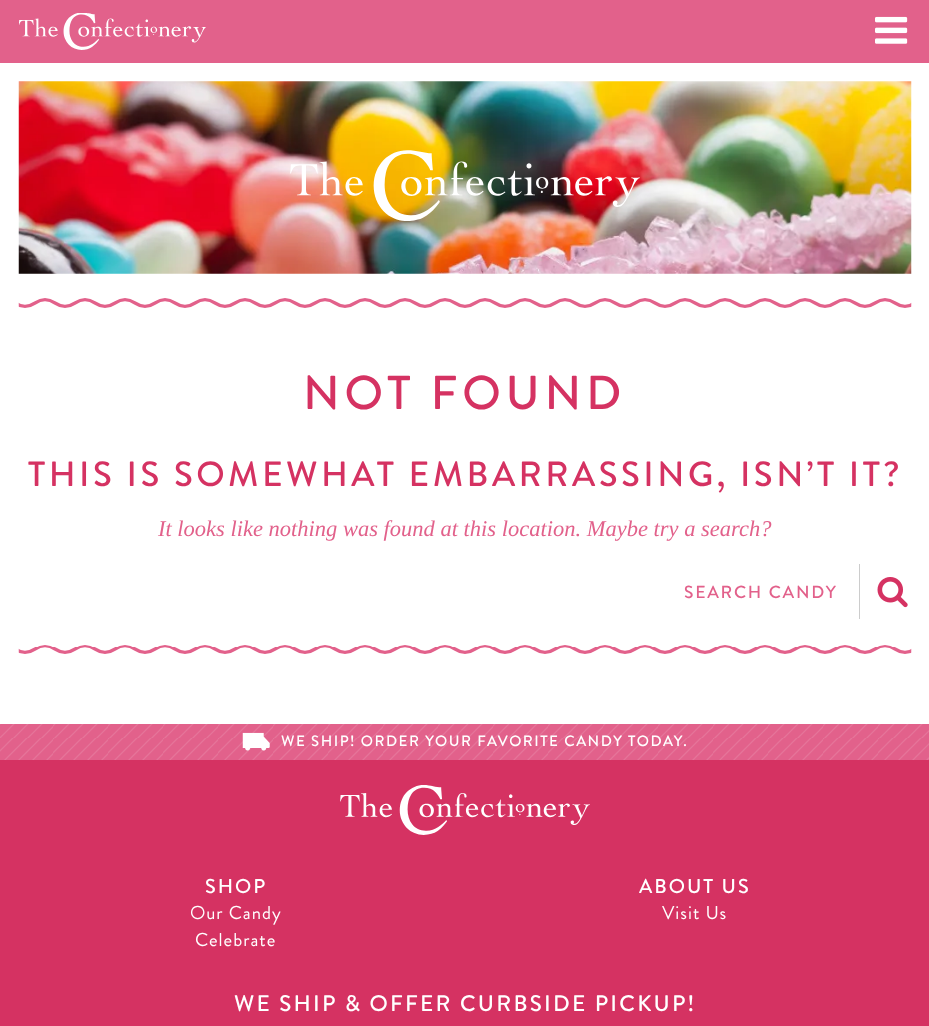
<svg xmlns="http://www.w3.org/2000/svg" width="929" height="1026">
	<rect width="100%" height="100%" fill="#FFFFFF" />
	<rect x="0" y="0" width="929" height="63" fill="#E2618B" />
	<image x="19" y="13" width="187" height="37" href="assets/img1.png" />
	<image x="875" y="16" width="33" height="28" href="assets/img2.png" />
	<image x="18" y="81" width="894" height="193" href="assets/img3.png" />
	<image x="290" y="150" width="350" height="71" href="assets/img4.png" />
	<image x="18" y="298" width="894" height="10" href="assets/img5.png" />
	<text x="303" y="409" font-family="Brandon Grotesque" font-size="47.5" font-weight="500" letter-spacing="4.75" fill="#D53262">NOT FOUND</text>
	<text x="28" y="486" font-family="Brandon Grotesque" font-size="35" font-weight="500" letter-spacing="3.5" fill="#D53262">THIS IS SOMEWHAT EMBARRASSING, ISN’T IT?</text>
	<text x="158" y="536" font-family="Liberation Serif" font-size="22.5" font-style="italic" fill="#E2618B">It looks like nothing was found at this location. Maybe try a search?</text>
	<text x="684" y="598" font-family="Brandon Grotesque" font-size="17.5" font-weight="500" letter-spacing="1.75" fill="#E2618B">SEARCH CANDY</text>
	<rect x="859" y="564" width="1" height="55" fill="#CCCCCC" />
	<image x="877" y="577" width="31" height="31" href="assets/img6.png" />
	<image x="18" y="645" width="894" height="9" href="assets/img7.png" />
	<rect x="0" y="760" width="929" height="266" fill="#D53262" />
	<rect x="0" y="724" width="929" height="36" fill="#E2618B" />
	<image x="0" y="724" width="929" height="36" href="assets/img8.png" />
	<image x="242" y="732" width="28" height="19" href="assets/img9.png" />
	<text x="281" y="746" font-family="Brandon Grotesque" font-size="15" font-weight="500" letter-spacing="1.5" fill="#FFFFFF">WE SHIP! ORDER YOUR FAVORITE CANDY TODAY.</text>
	<image x="340" y="785" width="250" height="50" href="assets/img10.png" />
	<text x="205" y="893" font-family="Brandon Grotesque" font-size="20" font-weight="500" letter-spacing="2" fill="#FFFFFF">SHOP</text>
	<g font-family="Brandon Grotesque" font-size="18.75" letter-spacing="1" fill="#FFFFFF">
		<text x="190" y="919">Our Candy</text>
		<text x="195" y="946">Celebrate</text>
	</g>
	<text x="639" y="893" font-family="Brandon Grotesque" font-size="20" font-weight="500" letter-spacing="2" fill="#FFFFFF">ABOUT US</text>
	<text x="662" y="919" font-family="Brandon Grotesque" font-size="18.75" letter-spacing="1" fill="#FFFFFF">Visit Us</text>
	<text x="234" y="1011" font-family="Brandon Grotesque" font-size="22.5" font-weight="500" letter-spacing="2.25" fill="#FFFFFF">WE SHIP &amp; OFFER CURBSIDE PICKUP!</text>
</svg>
